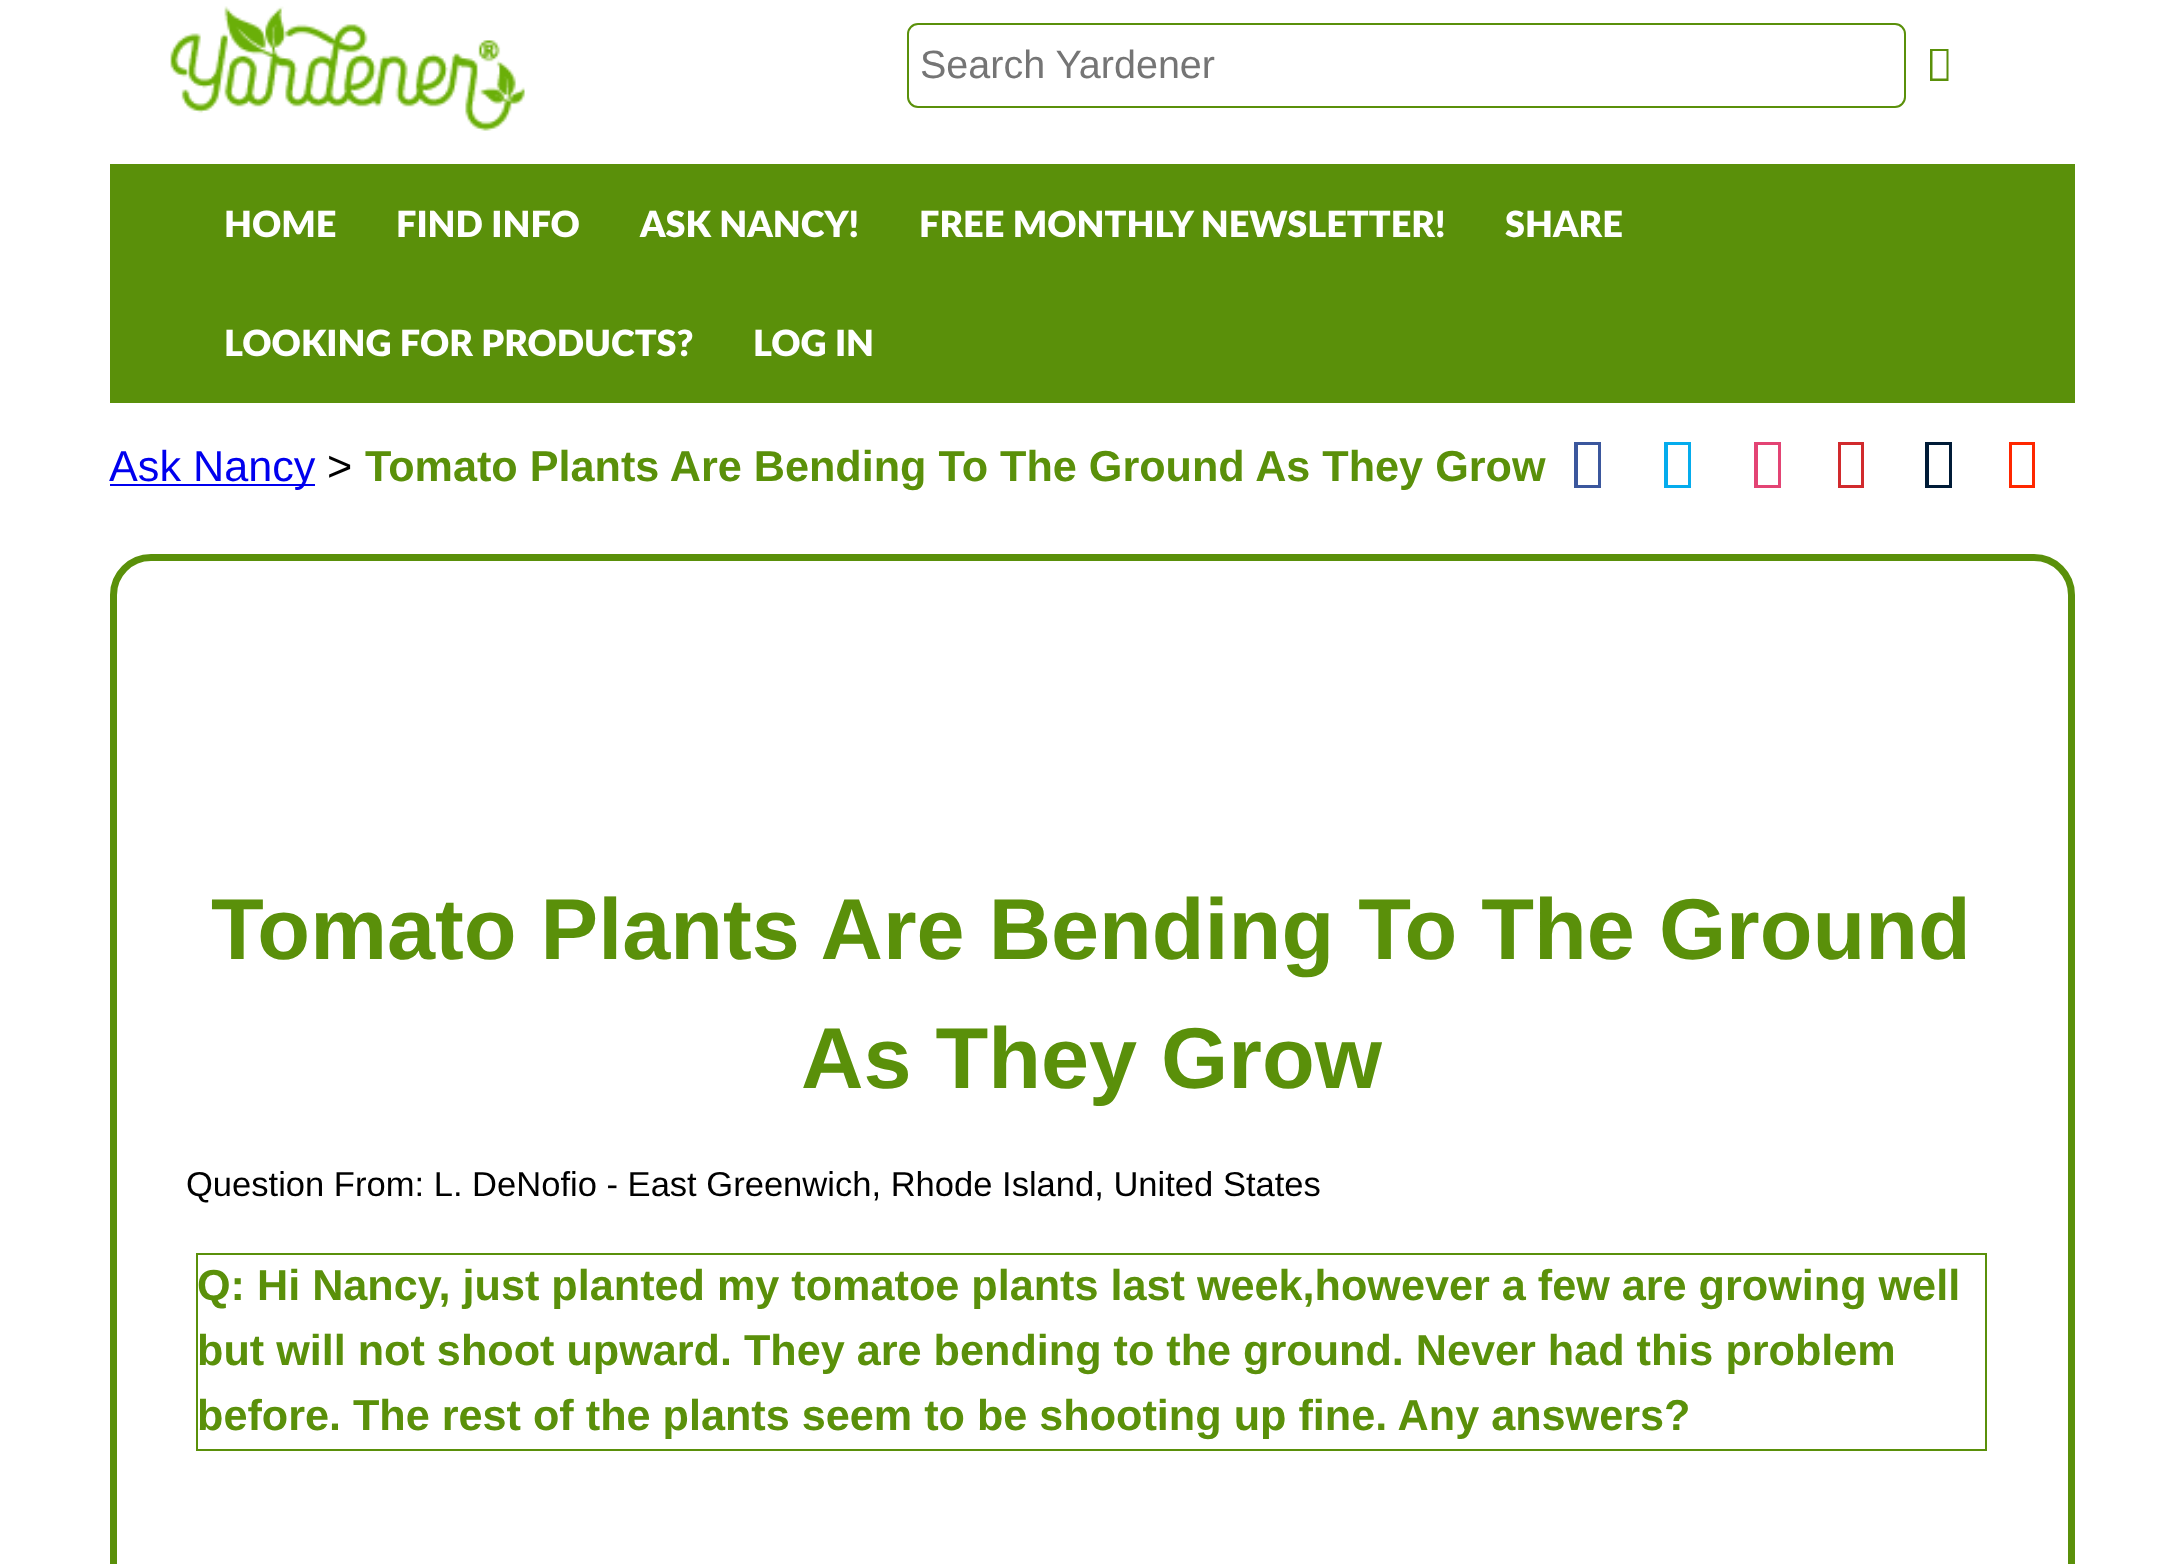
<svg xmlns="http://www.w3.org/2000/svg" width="2182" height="1564">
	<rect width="100%" height="100%" fill="#FFFFFF" />
	<image x="170" y="6" width="355" height="125" href="assets/img1.png" />
	<rect x="908" y="24" width="997" height="83" rx="10" fill="none" stroke="#5A900A" stroke-width="2" />
	<text x="920" y="78" font-family="Liberation Sans" font-size="39.5" fill="#757575">Search Yardener</text>
	<path d="M1930 81V49H1948.5V81ZM1932.5 78.5H1946.5V51H1932.5Z" fill="#5A900A" />
	<rect x="110" y="164" width="1965" height="239" fill="#5A900A" />
	<g font-family="Lato" font-size="36" font-weight="800" fill="#FFFFFF">
		<text x="224" y="237">HOME</text>
		<text x="396" y="237">FIND INFO</text>
		<text x="640" y="237">ASK NANCY!</text>
		<text x="919" y="237">FREE MONTHLY NEWSLETTER!</text>
		<text x="1505" y="237">SHARE</text>
		<text x="224" y="356">LOOKING FOR PRODUCTS?</text>
		<text x="753" y="356">LOG IN</text>
	</g>
	<rect x="110" y="484" width="205" height="2" fill="#0000EE" />
	<text x="109" y="481" font-family="Liberation Sans" font-size="43.2" fill="#0000EE">Ask Nancy</text>
	<text x="327" y="481" font-family="Liberation Sans" font-size="43.2" fill="#000000">&gt;</text>
	<text x="365" y="481" font-family="Liberation Sans" font-size="43.2" font-weight="700" fill="#5A900A">Tomato Plants Are Bending To The Ground As They Grow</text>
	<path d="M1574 488V442H1601V488ZM1578 485H1598V445H1578Z" fill="#3B579D" />
	<path d="M1664 488V442H1691V488ZM1668 485H1688V445H1668Z" fill="#05ACED" />
	<path d="M1754 488V442H1781V488ZM1758 485H1778V445H1758Z" fill="#E34474" />
	<path d="M1838 488V442H1864V488ZM1841 485H1861V445H1841Z" fill="#D12A2D" />
	<path d="M1925 488V442H1952V488ZM1929 485H1949V445H1929Z" fill="#001B37" />
	<path d="M2009 488V442H2035V488ZM2012 485H2032V445H2012Z" fill="#FF2700" />
	<rect x="113.5" y="557.5" width="1958" height="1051" rx="37.5" fill="none" stroke="#5A900A" stroke-width="7" />
	<g font-family="Liberation Sans" font-size="86.4" font-weight="700" fill="#5A900A">
		<text x="211" y="959">Tomato Plants Are Bending To The Ground</text>
		<text x="801" y="1088">As They Grow</text>
	</g>
	<text x="186" y="1196" font-family="Liberation Sans" font-size="34.55" fill="#000000">Question From: L. DeNofio - East Greenwich, Rhode Island, United States</text>
	<rect x="197" y="1254" width="1789" height="196" fill="none" stroke="#5A900A" stroke-width="2" />
	<g font-family="Liberation Sans" font-size="43.2" font-weight="700" fill="#5A900A">
		<text x="197" y="1300">Q: Hi Nancy, just planted my tomatoe plants last week,however a few are growing well</text>
		<text x="197" y="1365">but will not shoot upward. They are bending to the ground. Never had this problem</text>
		<text x="197" y="1430">before. The rest of the plants seem to be shooting up fine. Any answers?</text>
	</g>
</svg>
